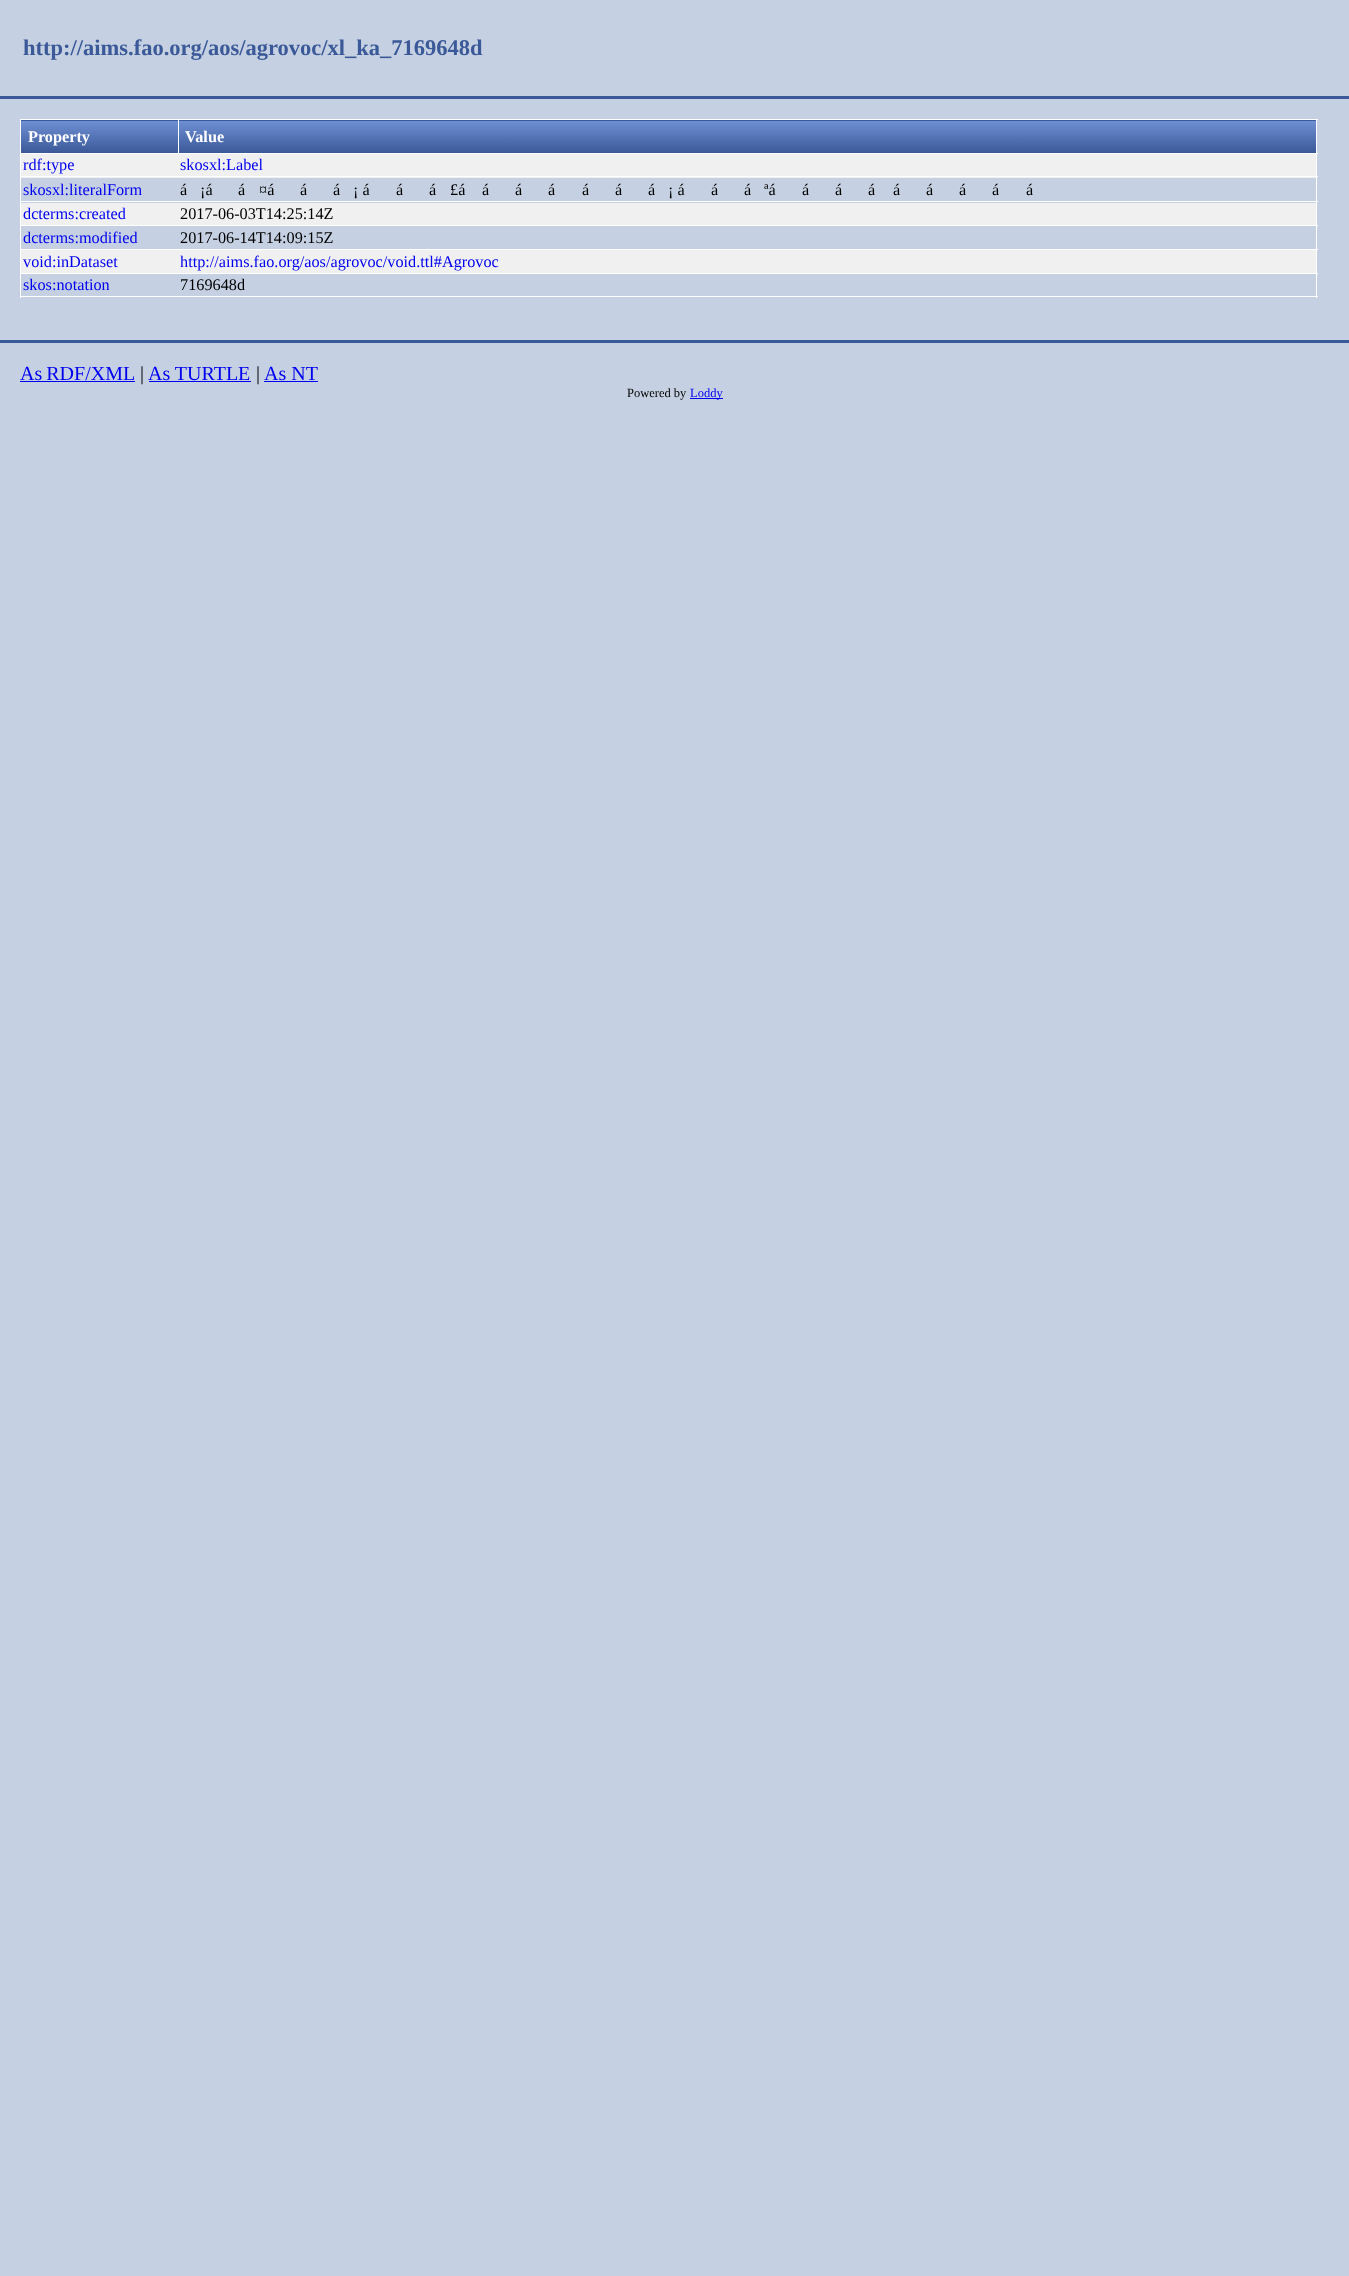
<svg xmlns="http://www.w3.org/2000/svg" width="1349" height="2276">
	<defs>
		<linearGradient id="g1" gradientUnits="userSpaceOnUse" x1="100" y1="90" x2="100" y2="121"><stop offset="0" stop-color="#6E8FD3" /><stop offset="1" stop-color="#3B5998" /></linearGradient>
		<linearGradient id="g2" gradientUnits="userSpaceOnUse" x1="100" y1="121" x2="100" y2="153"><stop offset="0" stop-color="#6E8FD3" /><stop offset="1" stop-color="#3B5998" /></linearGradient>
		<linearGradient id="g3" gradientUnits="userSpaceOnUse" x1="748" y1="90" x2="748" y2="121"><stop offset="0" stop-color="#6E8FD3" /><stop offset="1" stop-color="#3B5998" /></linearGradient>
		<linearGradient id="g4" gradientUnits="userSpaceOnUse" x1="748" y1="121" x2="748" y2="153"><stop offset="0" stop-color="#6E8FD3" /><stop offset="1" stop-color="#3B5998" /></linearGradient>
	</defs>
	<rect width="100%" height="100%" fill="#C5D1E2" />
	<rect x="0" y="96" width="1349" height="3" fill="#3B5998" />
	<text x="23" y="55" font-family="Liberation Serif" font-size="22.5" font-weight="700" fill="#3B5998">http://aims.fao.org/aos/agrovoc/xl_ka_7169648d</text>
	<rect x="20" y="119" width="1298" height="1" fill="#FFFFFF" />
	<rect x="1316" y="119" width="1" height="179" fill="#FFFFFF" />
	<rect x="20" y="296" width="1298" height="1" fill="#FFFFFF" />
	<rect x="20" y="119" width="1" height="179" fill="#FFFFFF" />
	<rect x="21" y="120" width="158" height="1" fill="url(#g1)" />
	<rect x="21" y="121" width="157" height="32" fill="url(#g2)" />
	<text x="28" y="142" font-family="Liberation Serif" font-size="16.25" font-weight="700" fill="#FFFFFF">Property</text>
	<rect x="179" y="120" width="1137" height="1" fill="url(#g3)" />
	<rect x="179" y="121" width="1137" height="32" fill="url(#g4)" />
	<rect x="20" y="153" width="1298" height="1" fill="#FFFFFF" />
	<rect x="178" y="119" width="1" height="35" fill="#FFFFFF" />
	<text x="185" y="142" font-family="Liberation Serif" font-size="16.25" font-weight="700" fill="#FFFFFF">Value</text>
	<rect x="21" y="154" width="1295" height="24" fill="#F0F0F0" />
	<g font-family="Liberation Serif" font-size="16.25" fill="#0000EE">
		<text x="23" y="170">rdf:type</text>
		<text x="180" y="170">skosxl:Label</text>
	</g>
	<rect x="20" y="176" width="1298" height="1" fill="#FFFFFF" />
	<text x="23" y="195" font-family="Liberation Serif" font-size="16.25" fill="#0000EE">skosxl:literalForm</text>
	<g font-family="Liberation Serif" font-size="16.25" fill="#000000">
		<text x="180" y="195">á</text>
		<text x="200" y="195">¡á</text>
		<text x="238" y="195">á</text>
		<text x="259" y="195">¤á</text>
		<text x="300" y="195">á</text>
		<text x="333" y="195">á</text>
		<text x="353" y="195">¡ á</text>
		<text x="396" y="195">á</text>
		<text x="429" y="195">á</text>
		<text x="450" y="195">£á</text>
		<text x="482" y="195">á</text>
		<text x="515" y="195">á</text>
		<text x="548" y="195">á</text>
		<text x="582" y="195">á</text>
		<text x="615" y="195">á</text>
		<text x="648" y="195">á</text>
		<text x="668" y="195">¡ á</text>
		<text x="711" y="195">á</text>
		<text x="744" y="195">á</text>
		<text x="764" y="195">ªá</text>
		<text x="802" y="195">á</text>
		<text x="835" y="195">á</text>
		<text x="868" y="195">á</text>
		<text x="893" y="195">á</text>
		<text x="926" y="195">á</text>
		<text x="959" y="195">á</text>
		<text x="992" y="195">á</text>
		<text x="1026" y="195">á</text>
	</g>
	<rect x="21" y="203" width="1295" height="22" fill="#F0F0F0" />
	<rect x="20" y="201" width="1298" height="1" fill="#FFFFFF" />
	<text x="23" y="219" font-family="Liberation Serif" font-size="16.25" fill="#0000EE">dcterms:created</text>
	<text x="180" y="219" font-family="Liberation Serif" font-size="16.25" fill="#000000">2017-06-03T14:25:14Z</text>
	<rect x="20" y="225" width="1298" height="1" fill="#FFFFFF" />
	<text x="23" y="243" font-family="Liberation Serif" font-size="16.25" fill="#0000EE">dcterms:modified</text>
	<text x="180" y="243" font-family="Liberation Serif" font-size="16.25" fill="#000000">2017-06-14T14:09:15Z</text>
	<rect x="21" y="250" width="1295" height="23" fill="#F0F0F0" />
	<rect x="20" y="249" width="1298" height="1" fill="#FFFFFF" />
	<g font-family="Liberation Serif" font-size="16.25" fill="#0000EE">
		<text x="23" y="267">void:inDataset</text>
		<text x="180" y="267">http://aims.fao.org/aos/agrovoc/void.ttl#Agrovoc</text>
	</g>
	<rect x="20" y="273" width="1298" height="1" fill="#FFFFFF" />
	<text x="23" y="290" font-family="Liberation Serif" font-size="16.25" fill="#0000EE">skos:notation</text>
	<text x="180" y="290" font-family="Liberation Serif" font-size="16.25" fill="#000000">7169648d</text>
	<rect x="0" y="340" width="1349" height="3" fill="#3B5998" />
	<text x="20" y="380" word-spacing="-1" font-family="Liberation Serif" font-size="20" fill="#0000EE">As RDF/XML</text>
	<rect x="20" y="381" width="115" height="1" fill="#0000EE" />
	<text x="140" y="380" font-family="Liberation Serif" font-size="20" fill="#000000">|</text>
	<text x="148" y="380" font-family="Liberation Serif" font-size="20" fill="#0000EE">As TURTLE</text>
	<rect x="149" y="381" width="102" height="1" fill="#0000EE" />
	<text x="256" y="380" font-family="Liberation Serif" font-size="20" fill="#000000">|</text>
	<text x="264" y="380" font-family="Liberation Serif" font-size="20" fill="#0000EE">As NT</text>
	<rect x="264" y="381" width="54" height="1" fill="#0000EE" />
	<text x="627" y="397" font-family="Liberation Serif" font-size="12.5" fill="#000000">Powered by</text>
	<rect x="690" y="398" width="33" height="1" fill="#0000EE" />
	<text x="690" y="397" font-family="Liberation Serif" font-size="12.5" fill="#0000EE">Loddy</text>
</svg>
